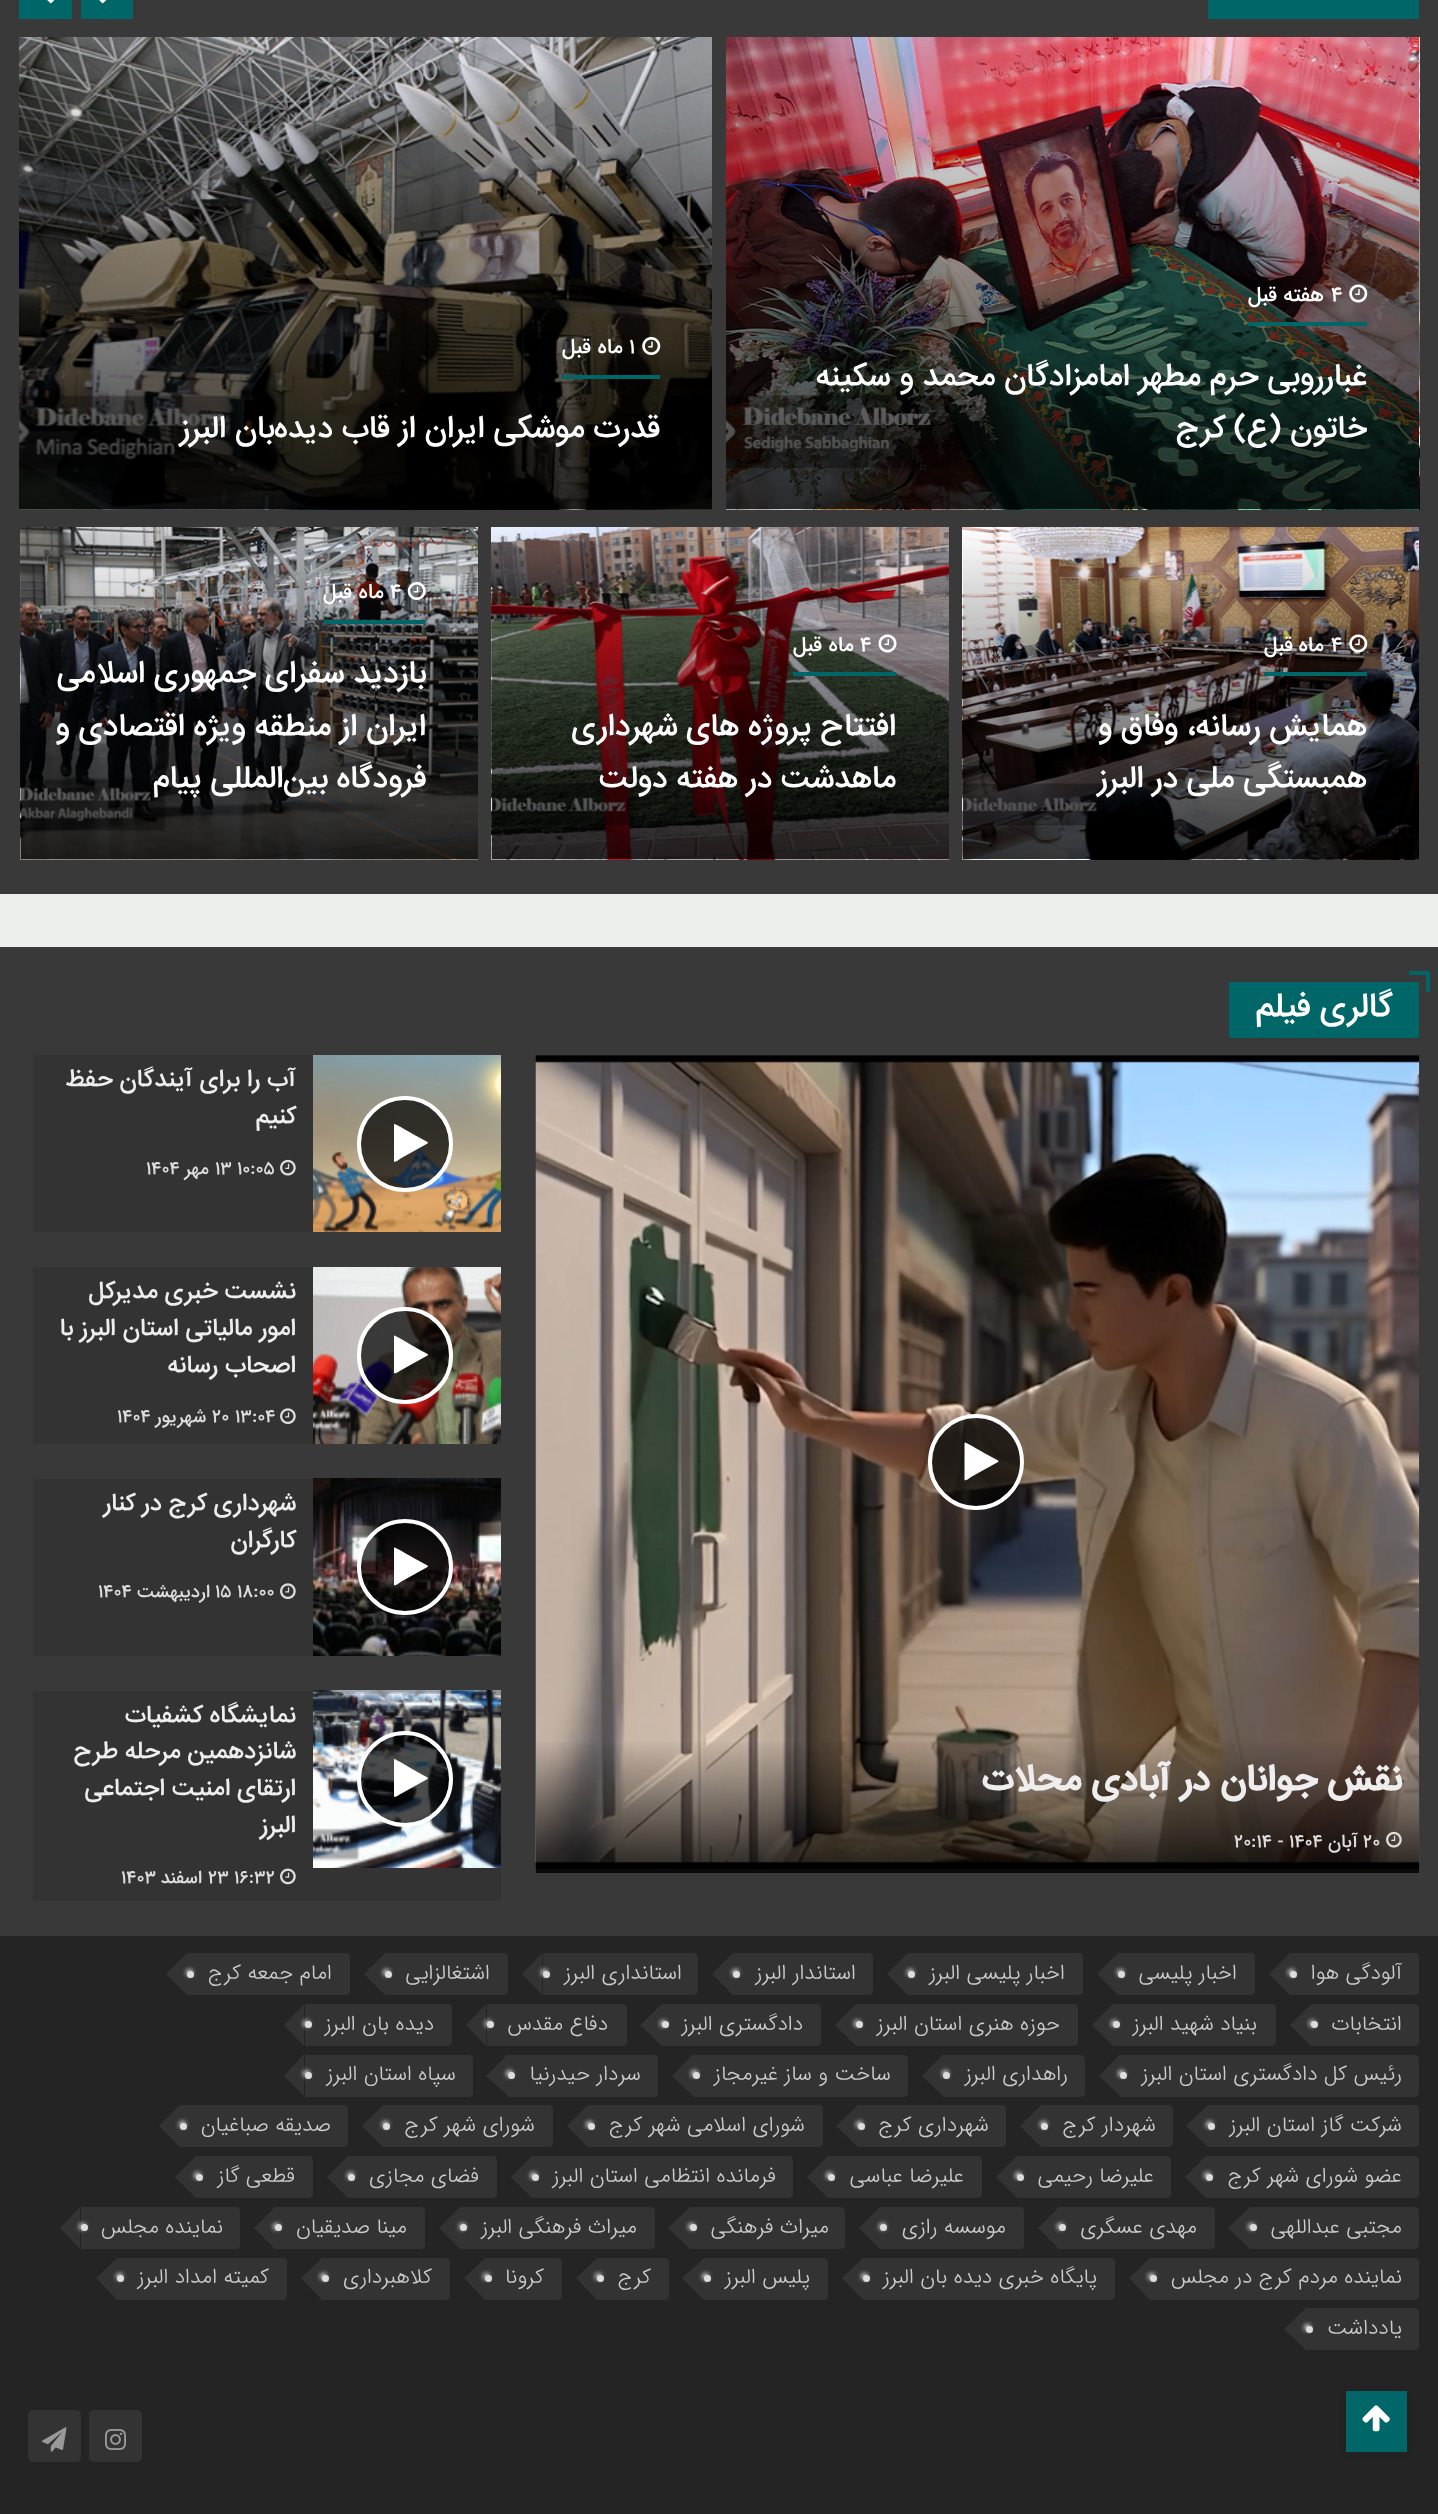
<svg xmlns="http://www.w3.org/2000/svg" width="1438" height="2514">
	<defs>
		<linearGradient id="g1" gradientUnits="userSpaceOnUse" x1="977" y1="1873" x2="977" y2="1738"><stop offset="0" stop-color="#000000" stop-opacity="0.8" /><stop offset="1" stop-color="#000000" stop-opacity="0" /></linearGradient>
	</defs>
	<rect width="100%" height="100%" fill="#EDEFED" />
	<rect x="0" y="0" width="1438" height="894" fill="#393939" />
	<rect x="1208" y="0" width="211" height="19" fill="#006667" />
	<rect x="81" y="0" width="52" height="19" fill="#006667" />
	<image x="99" y="0" width="8" height="4" href="assets/img1.png" />
	<rect x="19" y="0" width="53" height="19" fill="#006667" />
	<image x="47" y="0" width="8" height="4" href="assets/img2.png" />
	<image x="1419" y="37" width="1" height="473" href="assets/img3.png" />
	<image x="726" y="37" width="693" height="473" href="assets/img4.png" />
	<rect x="1248" y="322" width="119" height="4" fill="#006667" />
	<image x="1349" y="284" width="19" height="19" href="assets/img5.png" />
	<text x="1331" y="301" font-family="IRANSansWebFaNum" font-size="21" font-weight="500" fill="#FFFFFF">4</text>
	<g font-family="IRANSansWebFaNum" font-size="21" font-weight="500" direction="rtl" fill="#FFFFFF">
		<text x="1324" y="301">هفته</text>
		<text x="1277" y="301">قبل</text>
	</g>
	<g font-family="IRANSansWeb" font-size="31.5" font-weight="500" direction="rtl" fill="#FFFFFF">
		<text x="1367" y="385">غبارروبی حرم مطهر امامزادگان محمد و سکینه</text>
		<text x="1367" y="437">خاتون (ع) کرج</text>
	</g>
	<image x="19" y="37" width="693" height="473" href="assets/img6.png" />
	<rect x="562" y="375" width="98" height="4" fill="#006667" />
	<image x="642" y="337" width="19" height="18" href="assets/img7.png" />
	<text x="629" y="353" font-family="IRANSansWebFaNum" font-size="21" font-weight="500" fill="#FFFFFF">1</text>
	<g font-family="IRANSansWebFaNum" font-size="21" font-weight="500" direction="rtl" fill="#FFFFFF">
		<text x="623" y="353">ماه</text>
		<text x="591" y="353">قبل</text>
	</g>
	<text x="660" y="437" font-family="IRANSansWeb" font-size="31.5" font-weight="500" direction="rtl" fill="#FFFFFF">قدرت موشکی ایران از قاب‌ دیده‌بان البرز</text>
	<image x="962" y="527" width="457" height="333" href="assets/img8.png" />
	<rect x="1264" y="672" width="103" height="4" fill="#006667" />
	<image x="1349" y="634" width="19" height="19" href="assets/img9.png" />
	<text x="1331" y="651" font-family="IRANSansWebFaNum" font-size="21" font-weight="500" fill="#FFFFFF">4</text>
	<g font-family="IRANSansWebFaNum" font-size="21" font-weight="500" direction="rtl" fill="#FFFFFF">
		<text x="1324" y="651">ماه</text>
		<text x="1293" y="651">قبل</text>
	</g>
	<g font-family="IRANSansWeb" font-size="31.5" font-weight="500" direction="rtl" fill="#FFFFFF">
		<text x="1367" y="735">همایش رسانه، وفاق و</text>
		<text x="1367" y="787">همبستگی ملی در البرز</text>
	</g>
	<image x="491" y="527" width="458" height="333" href="assets/img10.png" />
	<rect x="793" y="672" width="103" height="4" fill="#006667" />
	<image x="878" y="634" width="19" height="19" href="assets/img11.png" />
	<text x="860" y="651" font-family="IRANSansWebFaNum" font-size="21" font-weight="500" fill="#FFFFFF">4</text>
	<g font-family="IRANSansWebFaNum" font-size="21" font-weight="500" direction="rtl" fill="#FFFFFF">
		<text x="854" y="651">ماه</text>
		<text x="822" y="651">قبل</text>
	</g>
	<g font-family="IRANSansWeb" font-size="31.5" font-weight="500" direction="rtl" fill="#FFFFFF">
		<text x="896" y="735">افتتاح پروژه های شهرداری</text>
		<text x="896" y="787">ماهدشت در هفته دولت</text>
	</g>
	<image x="20" y="527" width="458" height="333" href="assets/img12.png" />
	<rect x="324" y="620" width="101" height="4" fill="#006667" />
	<image x="407" y="582" width="19" height="18" href="assets/img13.png" />
	<text x="390" y="598" font-family="IRANSansWebFaNum" font-size="21" font-weight="500" fill="#FFFFFF">4</text>
	<g font-family="IRANSansWebFaNum" font-size="21" font-weight="500" direction="rtl" fill="#FFFFFF">
		<text x="384" y="598">ماه</text>
		<text x="352" y="598">قبل</text>
	</g>
	<g font-family="IRANSansWeb" font-size="31.5" font-weight="500" direction="rtl" fill="#FFFFFF">
		<text x="426" y="682">بازدید سفرای جمهوری اسلامی</text>
		<text x="426" y="735">ایران از منطقه ویژه اقتصادی و</text>
		<text x="426" y="787">فرودگاه بین‌المللی پیام</text>
	</g>
	<rect x="0" y="947" width="1438" height="989" fill="#393939" />
	<rect x="1229" y="982" width="190" height="56" fill="#006667" />
	<rect x="1409" y="971" width="21" height="4" fill="#006667" />
	<rect x="1426" y="971" width="4" height="21" fill="#006667" />
	<text x="1393" y="1016" font-family="IRANSansWeb" font-size="34" font-weight="500" direction="rtl" fill="#FFFFFF">گالری فیلم</text>
	<rect x="33" y="1055" width="280" height="177" fill="#333333" />
	<image x="313" y="1055" width="188" height="177" href="assets/img14.png" />
	<circle cx="405" cy="1144" r="46" fill="#000000" fill-opacity="0.7" stroke="#FFFFFF" stroke-width="4" />
	<path d="M427.5 1143.5L400.5 1158.5C400 1159 395 1163 394 1161.5V1124.5L394.5 1124C395 1123.5 414.5 1135 416.5 1136L427.5 1142L428 1143Z" fill="#FFFFFF" />
	<g font-family="IRANSansWeb" font-size="24.5" font-weight="500" direction="rtl" fill="#EEEEEE">
		<text x="296" y="1086">آب را برای آیندگان حفظ</text>
		<text x="296" y="1123">کنیم</text>
	</g>
	<image x="280" y="1159" width="16" height="17" href="assets/img15.png" />
	<g font-family="IRANSansWebFaNum" font-size="18.5" font-weight="500" fill="#DDDDDD">
		<text x="237" y="1174">10:05</text>
		<text x="215" y="1174">13</text>
	</g>
	<text x="209" y="1174" font-family="IRANSansWebFaNum" font-size="18.5" font-weight="500" direction="rtl" fill="#DDDDDD">مهر</text>
	<text x="146" y="1174" font-family="IRANSansWebFaNum" font-size="18.5" font-weight="500" fill="#DDDDDD">1404</text>
	<rect x="33" y="1267" width="280" height="177" fill="#333333" />
	<image x="313" y="1267" width="188" height="177" href="assets/img16.png" />
	<rect x="359" y="1309" width="92" height="93" rx="46" fill="#000000" fill-opacity="0.7" stroke="#FFFFFF" stroke-width="4" />
	<path d="M427.5 1355.5L400.5 1370.5C400 1370.5 395 1374.5 394 1373V1336L394.5 1335.5C395 1335.5 414.5 1346.5 416.5 1348L427.5 1354L428 1354.5Z" fill="#FFFFFF" />
	<g font-family="IRANSansWeb" font-size="24.5" font-weight="500" direction="rtl" fill="#EEEEEE">
		<text x="296" y="1298">نشست خبری مدیرکل</text>
		<text x="296" y="1335">امور مالیاتی استان البرز با</text>
		<text x="296" y="1372">اصحاب رسانه</text>
	</g>
	<image x="280" y="1408" width="16" height="16" href="assets/img17.png" />
	<g font-family="IRANSansWebFaNum" font-size="18.5" font-weight="500" fill="#DDDDDD">
		<text x="235" y="1422">13:04</text>
		<text x="212" y="1422">20</text>
	</g>
	<text x="206" y="1422" font-family="IRANSansWebFaNum" font-size="18.5" font-weight="500" direction="rtl" fill="#DDDDDD">شهریور</text>
	<text x="117" y="1422" font-family="IRANSansWebFaNum" font-size="18.5" font-weight="500" fill="#DDDDDD">1404</text>
	<rect x="33" y="1479" width="280" height="177" fill="#333333" />
	<image x="313" y="1478" width="188" height="178" href="assets/img18.png" />
	<circle cx="405" cy="1567" r="46" fill="#000000" fill-opacity="0.7" stroke="#FFFFFF" stroke-width="4" />
	<path d="M427.5 1567L400.5 1582C400 1582.5 395 1586.5 394 1585V1548L394.5 1547.5C395 1547 414.5 1558.5 416.5 1559.5L427.5 1565.5L428 1566.5Z" fill="#FFFFFF" />
	<g font-family="IRANSansWeb" font-size="24.5" font-weight="500" direction="rtl" fill="#EEEEEE">
		<text x="296" y="1510">شهرداری کرج در کنار</text>
		<text x="296" y="1547">کارگران</text>
	</g>
	<image x="280" y="1583" width="16" height="16" href="assets/img17.png" />
	<g font-family="IRANSansWebFaNum" font-size="18.5" font-weight="500" fill="#DDDDDD">
		<text x="237" y="1597">18:00</text>
		<text x="215" y="1597">15</text>
	</g>
	<text x="210" y="1597" font-family="IRANSansWebFaNum" font-size="18.5" font-weight="500" direction="rtl" fill="#DDDDDD">اردیبهشت</text>
	<text x="98" y="1597" font-family="IRANSansWebFaNum" font-size="18.5" font-weight="500" fill="#DDDDDD">1404</text>
	<rect x="536" y="1055" width="883" height="818" fill="#333333" />
	<image x="535" y="1055" width="885" height="814" href="assets/img19.png" />
	<circle cx="976" cy="1462" r="46" fill="#000000" fill-opacity="0.7" stroke="#FFFFFF" stroke-width="4" />
	<path d="M998 1462L971 1477C970.5 1477.5 965.5 1481.5 964.5 1480V1443L965 1442.5C965.5 1442 985 1453.5 987 1454.5L998 1460.5L998.5 1461.5Z" fill="#FFFFFF" />
	<rect x="536" y="1742" width="883" height="131" fill="url(#g1)" />
	<text x="1402" y="1790" font-family="IRANSansWeb" font-size="36.75" font-weight="700" direction="rtl" fill="#EEEEEE">نقش جوانان در آبادی محلات</text>
	<image x="1386" y="1831" width="16" height="17" href="assets/img20.png" />
	<text x="1363" y="1847" font-family="IRANSansWebFaNum" font-size="18.5" font-weight="500" fill="#DDDDDD">20</text>
	<text x="1358" y="1847" font-family="IRANSansWebFaNum" font-size="18.5" font-weight="500" direction="rtl" fill="#DDDDDD">آبان</text>
	<text x="1234" y="1847" font-family="IRANSansWebFaNum" font-size="18.5" font-weight="500" fill="#DDDDDD">20:14 - 1404</text>
	<rect x="33" y="1691" width="468" height="210" fill="#333333" />
	<image x="313" y="1690" width="188" height="178" href="assets/img21.png" />
	<circle cx="405" cy="1779" r="46" fill="#000000" fill-opacity="0.7" stroke="#FFFFFF" stroke-width="4" />
	<path d="M427.5 1779L400.5 1794C400 1794 395 1798 394 1796.5V1759.5L394.5 1759C395 1759 414.5 1770 416.5 1771.5L427.5 1777.5L428 1778Z" fill="#FFFFFF" />
	<g font-family="IRANSansWeb" font-size="24.5" font-weight="500" direction="rtl" fill="#EEEEEE">
		<text x="296" y="1722">نمایشگاه کشفیات</text>
		<text x="296" y="1758">شانزدهمین مرحله طرح</text>
		<text x="296" y="1795">ارتقای امنیت اجتماعی</text>
		<text x="296" y="1832">البرز</text>
	</g>
	<image x="280" y="1868" width="16" height="17" href="assets/img22.png" />
	<g font-family="IRANSansWebFaNum" font-size="18.5" font-weight="500" fill="#DDDDDD">
		<text x="234" y="1883">16:32</text>
		<text x="208" y="1883">23</text>
	</g>
	<text x="202" y="1883" font-family="IRANSansWebFaNum" font-size="18.5" font-weight="500" direction="rtl" fill="#DDDDDD">اسفند</text>
	<text x="121" y="1883" font-family="IRANSansWebFaNum" font-size="18.5" font-weight="500" fill="#DDDDDD">1403</text>
	<rect x="0" y="1936" width="1438" height="439" fill="#242424" />
	<path d="M1290 1953H1415C1417 1953 1419 1955 1419 1957V1991C1419 1993 1417 1995 1415 1995H1290Z" fill="#333333" />
	<text x="1402" y="1979" font-family="IRANSansWebFaNum" font-size="21" font-weight="300" direction="rtl" fill="#CCCCCC">آلودگی هوا</text>
	<path d="M1290 1953V1995L1269 1974Z" fill="#333333" />
	<rect x="1288" y="1969" width="7" height="7" rx="3.5" fill="#CCCCCC" filter="blur(2px)" />
	<circle cx="1293.5" cy="1974.5" r="3.5" fill="#DDDDDD" />
	<path d="M1118 1953H1251C1253 1953 1255 1955 1255 1957V1991C1255 1993 1253 1995 1251 1995H1118Z" fill="#333333" />
	<text x="1237" y="1979" font-family="IRANSansWebFaNum" font-size="21" font-weight="300" direction="rtl" fill="#CCCCCC">اخبار پلیسی</text>
	<path d="M1118 1953V1995L1097 1974Z" fill="#333333" />
	<rect x="1117" y="1969" width="7" height="7" rx="3.5" fill="#CCCCCC" filter="blur(2px)" />
	<circle cx="1121.5" cy="1974.5" r="3.5" fill="#DDDDDD" />
	<path d="M908 1953H1079C1081 1953 1083 1955 1083 1957V1991C1083 1993 1081 1995 1079 1995H908Z" fill="#333333" />
	<text x="1065" y="1979" font-family="IRANSansWebFaNum" font-size="21" font-weight="300" direction="rtl" fill="#CCCCCC">اخبار پلیسی البرز</text>
	<path d="M908 1953V1995L887 1974Z" fill="#333333" />
	<rect x="907" y="1969" width="7" height="7" rx="3.5" fill="#CCCCCC" filter="blur(2px)" />
	<circle cx="911.5" cy="1974.5" r="3.5" fill="#DDDDDD" />
	<path d="M733 1953H869C871 1953 873 1955 873 1957V1991C873 1993 871 1995 869 1995H733Z" fill="#333333" />
	<text x="856" y="1979" font-family="IRANSansWebFaNum" font-size="21" font-weight="300" direction="rtl" fill="#CCCCCC">استاندار البرز</text>
	<path d="M733 1953V1995L712 1974Z" fill="#333333" />
	<rect x="732" y="1969" width="7" height="7" rx="3.5" fill="#CCCCCC" filter="blur(2px)" />
	<circle cx="736.5" cy="1974.5" r="3.5" fill="#DDDDDD" />
	<path d="M543 1953H694C696 1953 698 1955 698 1957V1991C698 1993 696 1995 694 1995H543Z" fill="#333333" />
	<text x="682" y="1979" font-family="IRANSansWebFaNum" font-size="21" font-weight="300" direction="rtl" fill="#CCCCCC">استانداری البرز</text>
	<path d="M542 1953V1995L522 1974Z" fill="#333333" />
	<rect x="541" y="1969" width="7" height="7" rx="3.5" fill="#CCCCCC" filter="blur(2px)" />
	<circle cx="546.5" cy="1974.5" r="3.5" fill="#DDDDDD" />
	<path d="M385 1953H504C506 1953 508 1955 508 1957V1991C508 1993 506 1995 504 1995H385Z" fill="#333333" />
	<text x="490" y="1979" font-family="IRANSansWebFaNum" font-size="21" font-weight="300" direction="rtl" fill="#CCCCCC">اشتغالزایی</text>
	<path d="M385 1953V1995L364 1974Z" fill="#333333" />
	<rect x="383" y="1969" width="7" height="7" rx="3.5" fill="#CCCCCC" filter="blur(2px)" />
	<circle cx="388.5" cy="1974.5" r="3.5" fill="#DDDDDD" />
	<path d="M187 1953H346C348 1953 350 1955 350 1957V1991C350 1993 348 1995 346 1995H187Z" fill="#333333" />
	<text x="332" y="1979" font-family="IRANSansWebFaNum" font-size="21" font-weight="300" direction="rtl" fill="#CCCCCC">امام جمعه کرج</text>
	<path d="M187 1953V1995L166 1974Z" fill="#333333" />
	<rect x="186" y="1969" width="7" height="7" rx="3.5" fill="#CCCCCC" filter="blur(2px)" />
	<circle cx="190.5" cy="1974.5" r="3.5" fill="#DDDDDD" />
	<path d="M1311 2004H1415C1417 2004 1419 2006 1419 2008V2042C1419 2044 1417 2046 1415 2046H1311Z" fill="#333333" />
	<text x="1402" y="2030" font-family="IRANSansWebFaNum" font-size="21" font-weight="300" direction="rtl" fill="#CCCCCC">انتخابات</text>
	<path d="M1311 2004V2046L1290 2025Z" fill="#333333" />
	<rect x="1309" y="2020" width="7" height="7" rx="3.5" fill="#CCCCCC" filter="blur(2px)" />
	<circle cx="1314.5" cy="2024.5" r="3.5" fill="#DDDDDD" />
	<path d="M1113 2004H1272C1274 2004 1276 2006 1276 2008V2042C1276 2044 1274 2046 1272 2046H1113Z" fill="#333333" />
	<text x="1257" y="2030" font-family="IRANSansWebFaNum" font-size="21" font-weight="300" direction="rtl" fill="#CCCCCC">بنیاد شهید البرز</text>
	<path d="M1113 2004V2046L1092 2025Z" fill="#333333" />
	<rect x="1111" y="2020" width="7" height="7" rx="3.5" fill="#CCCCCC" filter="blur(2px)" />
	<circle cx="1116.5" cy="2024.5" r="3.5" fill="#DDDDDD" />
	<path d="M856 2004H1074C1076 2004 1078 2006 1078 2008V2042C1078 2044 1076 2046 1074 2046H856Z" fill="#333333" />
	<text x="1060" y="2030" font-family="IRANSansWebFaNum" font-size="21" font-weight="300" direction="rtl" fill="#CCCCCC">حوزه هنری استان البرز</text>
	<path d="M856 2004V2046L835 2025Z" fill="#333333" />
	<rect x="854" y="2020" width="7" height="7" rx="3.5" fill="#CCCCCC" filter="blur(2px)" />
	<circle cx="859.5" cy="2024.5" r="3.5" fill="#DDDDDD" />
	<path d="M662 2004H817C819 2004 821 2006 821 2008V2042C821 2044 819 2046 817 2046H662Z" fill="#333333" />
	<text x="803" y="2030" font-family="IRANSansWebFaNum" font-size="21" font-weight="300" direction="rtl" fill="#CCCCCC">دادگستری البرز</text>
	<path d="M662 2004V2046L640 2025Z" fill="#333333" />
	<rect x="660" y="2020" width="7" height="7" rx="3.5" fill="#CCCCCC" filter="blur(2px)" />
	<circle cx="665.5" cy="2024.5" r="3.5" fill="#DDDDDD" />
	<path d="M487 2004H623C625 2004 627 2006 627 2008V2042C627 2044 625 2046 623 2046H487Z" fill="#333333" />
	<text x="608" y="2030" font-family="IRANSansWebFaNum" font-size="21" font-weight="300" direction="rtl" fill="#CCCCCC">دفاع مقدس</text>
	<path d="M486 2004V2046L466 2025Z" fill="#333333" />
	<rect x="485" y="2020" width="7" height="7" rx="3.5" fill="#CCCCCC" filter="blur(2px)" />
	<circle cx="490.5" cy="2024.5" r="3.5" fill="#DDDDDD" />
	<path d="M305 2004H448C450 2004 452 2006 452 2008V2042C452 2044 450 2046 448 2046H305Z" fill="#333333" />
	<text x="434" y="2030" font-family="IRANSansWebFaNum" font-size="21" font-weight="300" direction="rtl" fill="#CCCCCC">دیده بان البرز</text>
	<path d="M304 2004V2046L284 2025Z" fill="#333333" />
	<rect x="303" y="2020" width="7" height="7" rx="3.5" fill="#CCCCCC" filter="blur(2px)" />
	<circle cx="308.5" cy="2024.5" r="3.5" fill="#DDDDDD" />
	<path d="M1120 2055H1415C1417 2055 1419 2057 1419 2059V2093C1419 2095 1417 2097 1415 2097H1120Z" fill="#333333" />
	<text x="1402" y="2080" font-family="IRANSansWebFaNum" font-size="21" font-weight="300" direction="rtl" fill="#CCCCCC">رئیس کل دادگستری استان البرز</text>
	<path d="M1120 2054V2096L1099 2076Z" fill="#333333" />
	<rect x="1118" y="2070" width="7" height="7" rx="3.5" fill="#CCCCCC" filter="blur(2px)" />
	<circle cx="1123.5" cy="2075.5" r="3.5" fill="#DDDDDD" />
	<path d="M943 2055H1081C1083 2055 1085 2057 1085 2059V2093C1085 2095 1083 2097 1081 2097H943Z" fill="#333333" />
	<text x="1068" y="2080" font-family="IRANSansWebFaNum" font-size="21" font-weight="300" direction="rtl" fill="#CCCCCC">راهداری البرز</text>
	<path d="M943 2054V2096L922 2076Z" fill="#333333" />
	<rect x="942" y="2070" width="7" height="7" rx="3.5" fill="#CCCCCC" filter="blur(2px)" />
	<circle cx="946.5" cy="2075.5" r="3.5" fill="#DDDDDD" />
	<path d="M693 2055H904C906 2055 908 2057 908 2059V2093C908 2095 906 2097 904 2097H693Z" fill="#333333" />
	<text x="891" y="2080" font-family="IRANSansWebFaNum" font-size="21" font-weight="300" direction="rtl" fill="#CCCCCC">ساخت و ساز غیرمجاز</text>
	<path d="M693 2054V2096L672 2076Z" fill="#333333" />
	<rect x="691" y="2070" width="7" height="7" rx="3.5" fill="#CCCCCC" filter="blur(2px)" />
	<circle cx="696.5" cy="2075.5" r="3.5" fill="#DDDDDD" />
	<path d="M508 2055H654C656 2055 658 2057 658 2059V2093C658 2095 656 2097 654 2097H508Z" fill="#333333" />
	<text x="641" y="2080" font-family="IRANSansWebFaNum" font-size="21" font-weight="300" direction="rtl" fill="#CCCCCC">سردار حیدرنیا</text>
	<path d="M508 2054V2096L486 2076Z" fill="#333333" />
	<rect x="506" y="2070" width="7" height="7" rx="3.5" fill="#CCCCCC" filter="blur(2px)" />
	<circle cx="511.5" cy="2075.5" r="3.5" fill="#DDDDDD" />
	<path d="M305 2055H469C471 2055 473 2057 473 2059V2093C473 2095 471 2097 469 2097H305Z" fill="#333333" />
	<text x="456" y="2080" font-family="IRANSansWebFaNum" font-size="21" font-weight="300" direction="rtl" fill="#CCCCCC">سپاه استان البرز</text>
	<path d="M304 2054V2096L284 2076Z" fill="#333333" />
	<rect x="303" y="2070" width="7" height="7" rx="3.5" fill="#CCCCCC" filter="blur(2px)" />
	<circle cx="308.5" cy="2075.5" r="3.5" fill="#DDDDDD" />
	<path d="M1208 2105H1415C1417 2105 1419 2107 1419 2109V2143C1419 2145 1417 2147 1415 2147H1208Z" fill="#333333" />
	<text x="1402" y="2131" font-family="IRANSansWebFaNum" font-size="21" font-weight="300" direction="rtl" fill="#CCCCCC">شرکت گاز استان البرز</text>
	<path d="M1208 2105V2147L1186 2126Z" fill="#333333" />
	<rect x="1206" y="2121" width="7" height="7" rx="3.5" fill="#CCCCCC" filter="blur(2px)" />
	<circle cx="1211.5" cy="2126.5" r="3.5" fill="#DDDDDD" />
	<path d="M1041 2105H1169C1171 2105 1173 2107 1173 2109V2143C1173 2145 1171 2147 1169 2147H1041Z" fill="#333333" />
	<text x="1156" y="2131" font-family="IRANSansWebFaNum" font-size="21" font-weight="300" direction="rtl" fill="#CCCCCC">شهردار کرج</text>
	<path d="M1041 2105V2147L1020 2126Z" fill="#333333" />
	<rect x="1040" y="2121" width="7" height="7" rx="3.5" fill="#CCCCCC" filter="blur(2px)" />
	<circle cx="1044.5" cy="2126.5" r="3.5" fill="#DDDDDD" />
	<path d="M858 2105H1002C1004 2105 1006 2107 1006 2109V2143C1006 2145 1004 2147 1002 2147H858Z" fill="#333333" />
	<text x="989" y="2131" font-family="IRANSansWebFaNum" font-size="21" font-weight="300" direction="rtl" fill="#CCCCCC">شهرداری کرج</text>
	<path d="M858 2105V2147L836 2126Z" fill="#333333" />
	<rect x="856" y="2121" width="7" height="7" rx="3.5" fill="#CCCCCC" filter="blur(2px)" />
	<circle cx="861.5" cy="2126.5" r="3.5" fill="#DDDDDD" />
	<path d="M588 2105H819C821 2105 823 2107 823 2109V2143C823 2145 821 2147 819 2147H588Z" fill="#333333" />
	<text x="805" y="2131" font-family="IRANSansWebFaNum" font-size="21" font-weight="300" direction="rtl" fill="#CCCCCC">شورای اسلامی شهر کرج</text>
	<path d="M588 2105V2147L567 2126Z" fill="#333333" />
	<rect x="586" y="2121" width="7" height="7" rx="3.5" fill="#CCCCCC" filter="blur(2px)" />
	<circle cx="591.5" cy="2126.5" r="3.5" fill="#DDDDDD" />
	<path d="M383 2105H549C551 2105 553 2107 553 2109V2143C553 2145 551 2147 549 2147H383Z" fill="#333333" />
	<text x="535" y="2131" font-family="IRANSansWebFaNum" font-size="21" font-weight="300" direction="rtl" fill="#CCCCCC">شورای شهر کرج</text>
	<path d="M383 2105V2147L362 2126Z" fill="#333333" />
	<rect x="382" y="2121" width="7" height="7" rx="3.5" fill="#CCCCCC" filter="blur(2px)" />
	<circle cx="386.5" cy="2126.5" r="3.5" fill="#DDDDDD" />
	<path d="M180 2105H344C346 2105 348 2107 348 2109V2143C348 2145 346 2147 344 2147H180Z" fill="#333333" />
	<text x="331" y="2131" font-family="IRANSansWebFaNum" font-size="21" font-weight="300" direction="rtl" fill="#CCCCCC">صدیقه صباغیان</text>
	<path d="M180 2105V2147L159 2126Z" fill="#333333" />
	<rect x="179" y="2121" width="7" height="7" rx="3.5" fill="#CCCCCC" filter="blur(2px)" />
	<circle cx="183.5" cy="2126.5" r="3.5" fill="#DDDDDD" />
	<path d="M1206 2156H1415C1417 2156 1419 2158 1419 2160V2194C1419 2196 1417 2198 1415 2198H1206Z" fill="#333333" />
	<text x="1402" y="2182" font-family="IRANSansWebFaNum" font-size="21" font-weight="300" direction="rtl" fill="#CCCCCC">عضو شورای شهر کرج</text>
	<path d="M1206 2156V2198L1185 2177Z" fill="#333333" />
	<rect x="1204" y="2172" width="7" height="7" rx="3.5" fill="#CCCCCC" filter="blur(2px)" />
	<circle cx="1209.5" cy="2177.5" r="3.5" fill="#DDDDDD" />
	<path d="M1017 2156H1167C1169 2156 1171 2158 1171 2160V2194C1171 2196 1169 2198 1167 2198H1017Z" fill="#333333" />
	<text x="1154" y="2182" font-family="IRANSansWebFaNum" font-size="21" font-weight="300" direction="rtl" fill="#CCCCCC">علیرضا رحیمی</text>
	<path d="M1017 2156V2198L996 2177Z" fill="#333333" />
	<rect x="1015" y="2172" width="7" height="7" rx="3.5" fill="#CCCCCC" filter="blur(2px)" />
	<circle cx="1020.5" cy="2177.5" r="3.5" fill="#DDDDDD" />
	<path d="M828 2156H978C980 2156 982 2158 982 2160V2194C982 2196 980 2198 978 2198H828Z" fill="#333333" />
	<text x="964" y="2182" font-family="IRANSansWebFaNum" font-size="21" font-weight="300" direction="rtl" fill="#CCCCCC">علیرضا عباسی</text>
	<path d="M828 2156V2198L807 2177Z" fill="#333333" />
	<rect x="826" y="2172" width="7" height="7" rx="3.5" fill="#CCCCCC" filter="blur(2px)" />
	<circle cx="831.5" cy="2177.5" r="3.5" fill="#DDDDDD" />
	<path d="M532 2156H789C791 2156 793 2158 793 2160V2194C793 2196 791 2198 789 2198H532Z" fill="#333333" />
	<text x="776" y="2182" font-family="IRANSansWebFaNum" font-size="21" font-weight="300" direction="rtl" fill="#CCCCCC">فرمانده انتظامی استان البرز</text>
	<path d="M532 2156V2198L511 2177Z" fill="#333333" />
	<rect x="530" y="2172" width="7" height="7" rx="3.5" fill="#CCCCCC" filter="blur(2px)" />
	<circle cx="535.5" cy="2177.5" r="3.5" fill="#DDDDDD" />
	<path d="M348 2156H493C495 2156 497 2158 497 2160V2194C497 2196 495 2198 493 2198H348Z" fill="#333333" />
	<text x="479" y="2182" font-family="IRANSansWebFaNum" font-size="21" font-weight="300" direction="rtl" fill="#CCCCCC">فضای مجازی</text>
	<path d="M348 2156V2198L327 2177Z" fill="#333333" />
	<rect x="347" y="2172" width="7" height="7" rx="3.5" fill="#CCCCCC" filter="blur(2px)" />
	<circle cx="351.5" cy="2177.5" r="3.5" fill="#DDDDDD" />
	<path d="M196 2156H309C311 2156 313 2158 313 2160V2194C313 2196 311 2198 309 2198H196Z" fill="#333333" />
	<text x="295" y="2182" font-family="IRANSansWebFaNum" font-size="21" font-weight="300" direction="rtl" fill="#CCCCCC">قطعی گاز</text>
	<path d="M196 2156V2198L175 2177Z" fill="#333333" />
	<rect x="194" y="2172" width="7" height="7" rx="3.5" fill="#CCCCCC" filter="blur(2px)" />
	<circle cx="199.5" cy="2177.5" r="3.5" fill="#DDDDDD" />
	<path d="M1250 2207H1415C1417 2207 1419 2209 1419 2211V2245C1419 2247 1417 2249 1415 2249H1250Z" fill="#333333" />
	<text x="1402" y="2233" font-family="IRANSansWebFaNum" font-size="21" font-weight="300" direction="rtl" fill="#CCCCCC">مجتبی عبداللهی</text>
	<path d="M1250 2207V2249L1228 2228Z" fill="#333333" />
	<rect x="1248" y="2223" width="7" height="7" rx="3.5" fill="#CCCCCC" filter="blur(2px)" />
	<circle cx="1253.5" cy="2227.5" r="3.5" fill="#DDDDDD" />
	<path d="M1059 2207H1211C1213 2207 1215 2209 1215 2211V2245C1215 2247 1213 2249 1211 2249H1059Z" fill="#333333" />
	<text x="1197" y="2233" font-family="IRANSansWebFaNum" font-size="21" font-weight="300" direction="rtl" fill="#CCCCCC">مهدی عسگری</text>
	<path d="M1059 2207V2249L1038 2228Z" fill="#333333" />
	<rect x="1057" y="2223" width="7" height="7" rx="3.5" fill="#CCCCCC" filter="blur(2px)" />
	<circle cx="1062.5" cy="2227.5" r="3.5" fill="#DDDDDD" />
	<path d="M880 2207H1020C1022 2207 1024 2209 1024 2211V2245C1024 2247 1022 2249 1020 2249H880Z" fill="#333333" />
	<text x="1006" y="2233" font-family="IRANSansWebFaNum" font-size="21" font-weight="300" direction="rtl" fill="#CCCCCC">موسسه رازی</text>
	<path d="M880 2207V2249L859 2228Z" fill="#333333" />
	<rect x="879" y="2223" width="7" height="7" rx="3.5" fill="#CCCCCC" filter="blur(2px)" />
	<circle cx="883.5" cy="2227.5" r="3.5" fill="#DDDDDD" />
	<path d="M690 2207H841C843 2207 845 2209 845 2211V2245C845 2247 843 2249 841 2249H690Z" fill="#333333" />
	<text x="829" y="2233" font-family="IRANSansWebFaNum" font-size="21" font-weight="300" direction="rtl" fill="#CCCCCC">میراث فرهنگی</text>
	<path d="M690 2207V2249L668 2228Z" fill="#333333" />
	<rect x="688" y="2223" width="7" height="7" rx="3.5" fill="#CCCCCC" filter="blur(2px)" />
	<circle cx="693.5" cy="2227.5" r="3.5" fill="#DDDDDD" />
	<path d="M460 2207H651C653 2207 655 2209 655 2211V2245C655 2247 653 2249 651 2249H460Z" fill="#333333" />
	<text x="637" y="2233" font-family="IRANSansWebFaNum" font-size="21" font-weight="300" direction="rtl" fill="#CCCCCC">میراث فرهنگی البرز</text>
	<path d="M460 2207V2249L439 2228Z" fill="#333333" />
	<rect x="459" y="2223" width="7" height="7" rx="3.5" fill="#CCCCCC" filter="blur(2px)" />
	<circle cx="463.5" cy="2227.5" r="3.5" fill="#DDDDDD" />
	<path d="M275 2207H421C423 2207 425 2209 425 2211V2245C425 2247 423 2249 421 2249H275Z" fill="#333333" />
	<text x="407" y="2233" font-family="IRANSansWebFaNum" font-size="21" font-weight="300" direction="rtl" fill="#CCCCCC">مینا صدیقیان</text>
	<path d="M275 2207V2249L254 2228Z" fill="#333333" />
	<rect x="273" y="2223" width="7" height="7" rx="3.5" fill="#CCCCCC" filter="blur(2px)" />
	<circle cx="278.5" cy="2227.5" r="3.5" fill="#DDDDDD" />
	<path d="M81 2207H236C238 2207 240 2209 240 2211V2245C240 2247 238 2249 236 2249H81Z" fill="#333333" />
	<text x="223" y="2233" font-family="IRANSansWebFaNum" font-size="21" font-weight="300" direction="rtl" fill="#CCCCCC">نماینده مجلس</text>
	<path d="M80 2207V2249L60 2228Z" fill="#333333" />
	<rect x="79" y="2223" width="7" height="7" rx="3.5" fill="#CCCCCC" filter="blur(2px)" />
	<circle cx="84.5" cy="2227.5" r="3.5" fill="#DDDDDD" />
	<path d="M1150 2258H1415C1417 2258 1419 2260 1419 2262V2296C1419 2298 1417 2300 1415 2300H1150Z" fill="#333333" />
	<text x="1402" y="2283" font-family="IRANSansWebFaNum" font-size="21" font-weight="300" direction="rtl" fill="#CCCCCC">نماینده مردم کرج در مجلس</text>
	<path d="M1150 2258V2300L1129 2278Z" fill="#333333" />
	<rect x="1148" y="2273" width="7" height="7" rx="3.5" fill="#CCCCCC" filter="blur(2px)" />
	<circle cx="1153.5" cy="2278.5" r="3.5" fill="#DDDDDD" />
	<path d="M863 2258H1111C1113 2258 1115 2260 1115 2262V2296C1115 2298 1113 2300 1111 2300H863Z" fill="#333333" />
	<text x="1097" y="2283" font-family="IRANSansWebFaNum" font-size="21" font-weight="300" direction="rtl" fill="#CCCCCC">پایگاه خبری دیده بان البرز</text>
	<path d="M863 2258V2300L842 2278Z" fill="#333333" />
	<rect x="861" y="2273" width="7" height="7" rx="3.5" fill="#CCCCCC" filter="blur(2px)" />
	<circle cx="866.5" cy="2278.5" r="3.5" fill="#DDDDDD" />
	<path d="M704 2258H824C826 2258 828 2260 828 2262V2296C828 2298 826 2300 824 2300H704Z" fill="#333333" />
	<text x="810" y="2283" font-family="IRANSansWebFaNum" font-size="21" font-weight="300" direction="rtl" fill="#CCCCCC">پلیس البرز</text>
	<path d="M704 2258V2300L682 2278Z" fill="#333333" />
	<rect x="702" y="2273" width="7" height="7" rx="3.5" fill="#CCCCCC" filter="blur(2px)" />
	<circle cx="707.5" cy="2278.5" r="3.5" fill="#DDDDDD" />
	<path d="M597 2258H665C667 2258 669 2260 669 2262V2296C669 2298 667 2300 665 2300H597Z" fill="#333333" />
	<text x="651" y="2283" font-family="IRANSansWebFaNum" font-size="21" font-weight="300" direction="rtl" fill="#CCCCCC">کرج</text>
	<path d="M597 2258V2300L576 2278Z" fill="#333333" />
	<rect x="595" y="2273" width="7" height="7" rx="3.5" fill="#CCCCCC" filter="blur(2px)" />
	<circle cx="600.5" cy="2278.5" r="3.5" fill="#DDDDDD" />
	<path d="M485 2258H558C560 2258 562 2260 562 2262V2296C562 2298 560 2300 558 2300H485Z" fill="#333333" />
	<text x="544" y="2283" font-family="IRANSansWebFaNum" font-size="21" font-weight="300" direction="rtl" fill="#CCCCCC">کرونا</text>
	<path d="M485 2258V2300L464 2278Z" fill="#333333" />
	<rect x="483" y="2273" width="7" height="7" rx="3.5" fill="#CCCCCC" filter="blur(2px)" />
	<circle cx="488.5" cy="2278.5" r="3.5" fill="#DDDDDD" />
	<path d="M322 2258H446C448 2258 450 2260 450 2262V2296C450 2298 448 2300 446 2300H322Z" fill="#333333" />
	<text x="432" y="2283" font-family="IRANSansWebFaNum" font-size="21" font-weight="300" direction="rtl" fill="#CCCCCC">کلاهبرداری</text>
	<path d="M322 2258V2300L301 2278Z" fill="#333333" />
	<rect x="320" y="2273" width="7" height="7" rx="3.5" fill="#CCCCCC" filter="blur(2px)" />
	<circle cx="325.5" cy="2278.5" r="3.5" fill="#DDDDDD" />
	<path d="M117 2258H283C285 2258 287 2260 287 2262V2296C287 2298 285 2300 283 2300H117Z" fill="#333333" />
	<text x="269" y="2283" font-family="IRANSansWebFaNum" font-size="21" font-weight="300" direction="rtl" fill="#CCCCCC">کمیته امداد البرز</text>
	<path d="M117 2258V2300L96 2278Z" fill="#333333" />
	<rect x="116" y="2273" width="7" height="7" rx="3.5" fill="#CCCCCC" filter="blur(2px)" />
	<circle cx="120.5" cy="2278.5" r="3.5" fill="#DDDDDD" />
	<path d="M1306 2308H1415C1417 2308 1419 2310 1419 2312V2346C1419 2348 1417 2350 1415 2350H1306Z" fill="#333333" />
	<text x="1402" y="2334" font-family="IRANSansWebFaNum" font-size="21" font-weight="300" direction="rtl" fill="#CCCCCC">یادداشت</text>
	<path d="M1306 2308V2350L1284 2329Z" fill="#333333" />
	<rect x="1304" y="2324" width="7" height="7" rx="3.5" fill="#CCCCCC" filter="blur(2px)" />
	<circle cx="1309.5" cy="2329.5" r="3.5" fill="#DDDDDD" />
	<rect x="0" y="2375" width="1438" height="139" fill="#242424" />
	<rect x="89" y="2410" width="53" height="52" rx="5" fill="#333333" />
	<image x="105" y="2429" width="21" height="21" href="assets/img23.png" />
	<rect x="28" y="2410" width="53" height="52" rx="5" fill="#333333" />
	<image x="42" y="2427" width="25" height="25" href="assets/img24.png" />
	<rect x="1351" y="2396" width="51" height="51" fill="#000000" fill-opacity="0.3" filter="blur(6px)" />
	<rect x="1346" y="2391" width="61" height="61" fill="#006667" />
	<image x="1362" y="2405" width="28" height="27" href="assets/img25.png" />
</svg>
